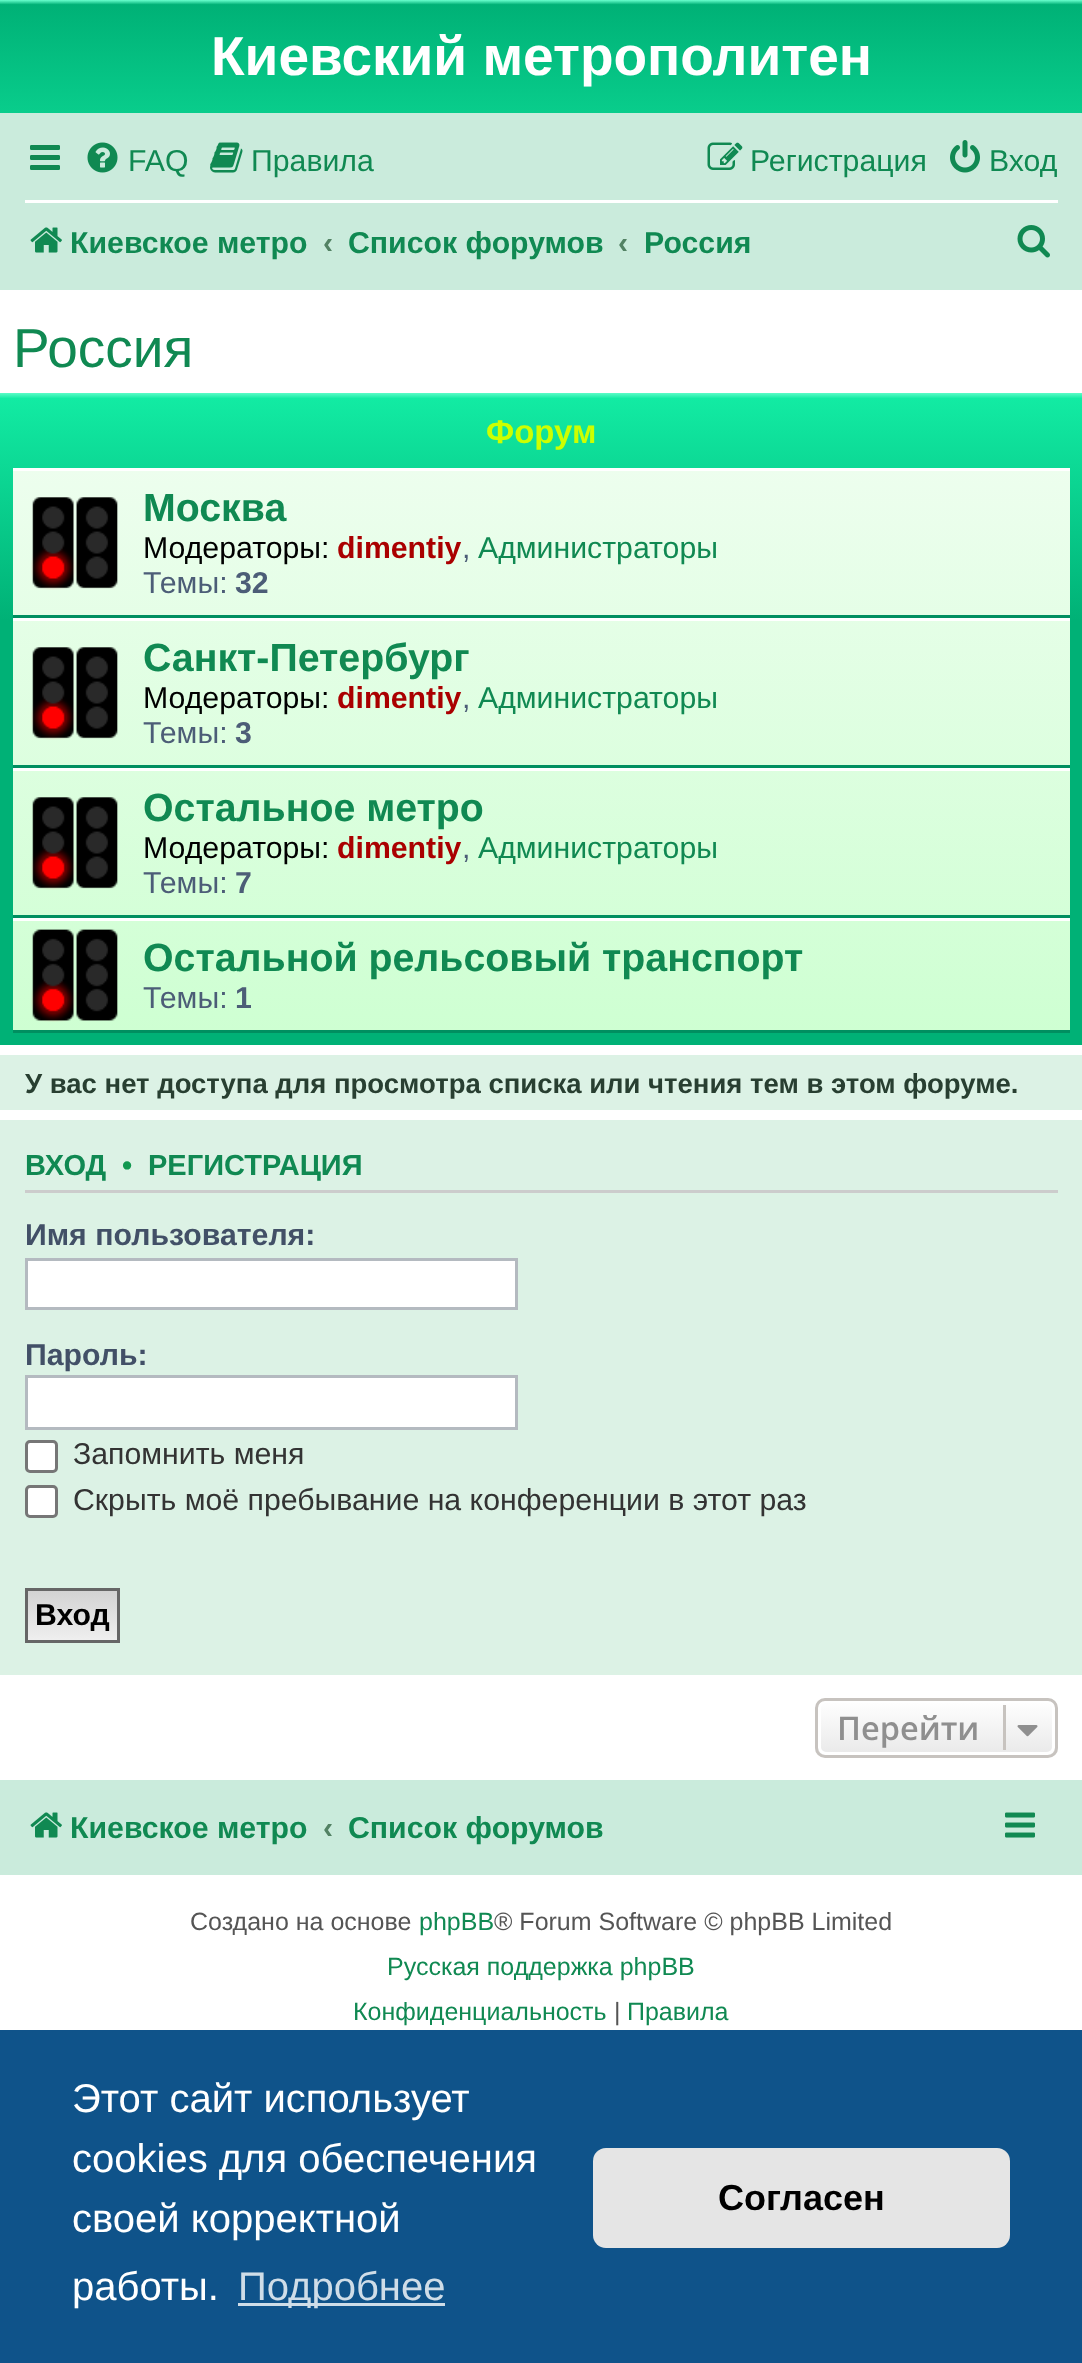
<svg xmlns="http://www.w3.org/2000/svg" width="1082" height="2363">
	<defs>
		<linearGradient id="g1" gradientUnits="userSpaceOnUse" x1="541" y1="0" x2="541" y2="230"><stop offset="0" stop-color="#6AFFCE" /><stop offset="0.02" stop-color="#00B176" /><stop offset="1" stop-color="#12EBA3" /></linearGradient>
		<linearGradient id="g2" gradientUnits="userSpaceOnUse" x1="541" y1="392" x2="541" y2="1045"><stop offset="0" stop-color="#6AFFCE" /><stop offset="0.01" stop-color="#12EBA3" /><stop offset="0.35" stop-color="#00B176" /><stop offset="1" stop-color="#00B176" /></linearGradient>
		<linearGradient id="g3" gradientUnits="userSpaceOnUse" x1="541" y1="467" x2="541" y2="1033"><stop offset="0" stop-color="#EDFEEE" /><stop offset="1" stop-color="#CEFFD2" /></linearGradient>
		<linearGradient id="g4" gradientUnits="userSpaceOnUse" x1="73" y1="1590" x2="73" y2="1640"><stop offset="0" stop-color="#D2D2D2" /><stop offset="1" stop-color="#EFEFEF" /></linearGradient>
		<clipPath id="clip1"><rect x="815" y="1698" width="243" height="60" rx="10" /></clipPath>
		<linearGradient id="g5" gradientUnits="userSpaceOnUse" x1="936" y1="1700" x2="936" y2="1755"><stop offset="0" stop-color="#FFFFFF" /><stop offset="1" stop-color="#E9E9E9" /></linearGradient>
	</defs>
	<rect width="100%" height="100%" fill="#FFFFFF" />
	<rect x="0" y="0" width="1082" height="113" fill="url(#g1)" />
	<text x="211" y="75" font-family="Liberation Sans" font-size="55" font-weight="700" fill="#FFFFFF">Киевский метрополитен</text>
	<rect x="0" y="113" width="1082" height="177" fill="#CAEBDC" />
	<image x="30" y="145" width="30" height="25" href="assets/img1.png" />
	<image x="87" y="142" width="31" height="31" href="assets/img2.png" />
	<text x="128" y="171" font-family="Liberation Sans" font-size="30.25" fill="#108952">FAQ</text>
	<image x="210" y="142" width="33" height="31" href="assets/img3.png" />
	<text x="251" y="171" font-family="Liberation Sans" font-size="30.25" fill="#108952">Правила</text>
	<image x="707" y="142" width="36" height="28" href="assets/img4.png" />
	<text x="750" y="171" font-family="Liberation Sans" font-size="30.25" fill="#108952">Регистрация</text>
	<image x="950" y="140" width="30" height="33" href="assets/img5.png" />
	<text x="989" y="171" font-family="Liberation Sans" font-size="30.25" fill="#108952">Вход</text>
	<rect x="25" y="200" width="1033" height="3" fill="#FFFFFF" />
	<image x="30" y="227" width="32" height="26" href="assets/img6.png" />
	<text x="70" y="253" font-family="Liberation Sans" font-size="30.25" font-weight="700" fill="#108952">Киевское метро</text>
	<text x="323" y="253" font-family="Liberation Sans" font-size="30.25" font-weight="700" fill="#538264">‹</text>
	<text x="348" y="253" font-family="Liberation Sans" font-size="30.25" font-weight="700" fill="#108952">Список форумов</text>
	<text x="618" y="253" font-family="Liberation Sans" font-size="30.25" font-weight="700" fill="#538264">‹</text>
	<text x="644" y="253" font-family="Liberation Sans" font-size="30.25" font-weight="700" fill="#108952">Россия</text>
	<image x="1017" y="225" width="33" height="33" href="assets/img7.png" />
	<text x="13" y="367" font-family="Liberation Sans" font-size="55" fill="#108952">Россия</text>
	<rect x="0" y="393" width="1082" height="652" fill="url(#g2)" />
	<text x="486" y="443" font-family="Liberation Sans" font-size="33" font-weight="700" fill="#CCFF00">Форум</text>
	<rect x="13" y="471" width="1057" height="559" fill="url(#g3)" />
	<rect x="13" y="468" width="1057" height="3" fill="#FFFFFF" />
	<rect x="13" y="615" width="1057" height="3" fill="#008F60" />
	<image x="31" y="497" width="87" height="93" href="assets/img8.png" />
	<text x="143" y="521" font-family="Liberation Sans" font-size="39.3" font-weight="700" fill="#108952">Москва</text>
	<text x="143" y="558" font-family="Liberation Sans" font-size="30.25" fill="#000000">Модераторы:</text>
	<text x="337" y="558" font-family="Liberation Sans" font-size="30.25" font-weight="700" fill="#AA0000">dimentiy</text>
	<text x="462" y="558" font-family="Liberation Sans" font-size="30.25" fill="#4C5D77">,</text>
	<text x="478" y="558" font-family="Liberation Sans" font-size="30.25" fill="#108952">Администраторы</text>
	<text x="143" y="593" font-family="Liberation Sans" font-size="30.25" fill="#4C5D77">Темы:</text>
	<text x="235" y="593" font-family="Liberation Sans" font-size="30.25" font-weight="700" fill="#4C5D77">32</text>
	<rect x="13" y="618" width="1057" height="3" fill="#FFFFFF" />
	<rect x="13" y="765" width="1057" height="3" fill="#008F60" />
	<image x="31" y="647" width="87" height="93" href="assets/img9.png" />
	<text x="143" y="671" font-family="Liberation Sans" font-size="39.3" font-weight="700" fill="#108952">Санкт-Петербург</text>
	<text x="143" y="708" font-family="Liberation Sans" font-size="30.25" fill="#000000">Модераторы:</text>
	<text x="337" y="708" font-family="Liberation Sans" font-size="30.25" font-weight="700" fill="#AA0000">dimentiy</text>
	<text x="462" y="708" font-family="Liberation Sans" font-size="30.25" fill="#4C5D77">,</text>
	<text x="478" y="708" font-family="Liberation Sans" font-size="30.25" fill="#108952">Администраторы</text>
	<text x="143" y="743" font-family="Liberation Sans" font-size="30.25" fill="#4C5D77">Темы:</text>
	<text x="235" y="743" font-family="Liberation Sans" font-size="30.25" font-weight="700" fill="#4C5D77">3</text>
	<rect x="13" y="768" width="1057" height="3" fill="#FFFFFF" />
	<rect x="13" y="915" width="1057" height="3" fill="#008F60" />
	<image x="31" y="797" width="87" height="93" href="assets/img10.png" />
	<text x="143" y="821" font-family="Liberation Sans" font-size="39.3" font-weight="700" fill="#108952">Остальное метро</text>
	<text x="143" y="858" font-family="Liberation Sans" font-size="30.25" fill="#000000">Модераторы:</text>
	<text x="337" y="858" font-family="Liberation Sans" font-size="30.25" font-weight="700" fill="#AA0000">dimentiy</text>
	<text x="462" y="858" font-family="Liberation Sans" font-size="30.25" fill="#4C5D77">,</text>
	<text x="478" y="858" font-family="Liberation Sans" font-size="30.25" fill="#108952">Администраторы</text>
	<text x="143" y="893" font-family="Liberation Sans" font-size="30.25" fill="#4C5D77">Темы:</text>
	<text x="235" y="893" font-family="Liberation Sans" font-size="30.25" font-weight="700" fill="#4C5D77">7</text>
	<rect x="13" y="918" width="1057" height="3" fill="#FFFFFF" />
	<rect x="13" y="1030" width="1057" height="3" fill="#008F60" />
	<image x="31" y="929" width="87" height="93" href="assets/img11.png" />
	<text x="143" y="971" font-family="Liberation Sans" font-size="39.3" font-weight="700" fill="#108952">Остальной рельсовый транспорт</text>
	<text x="143" y="1008" font-family="Liberation Sans" font-size="30.25" fill="#4C5D77">Темы:</text>
	<text x="235" y="1008" font-family="Liberation Sans" font-size="30.25" font-weight="700" fill="#4C5D77">1</text>
	<rect x="0" y="1055" width="1082" height="55" fill="#DCF2E5" />
	<text x="25" y="1093" font-family="Liberation Sans" font-size="27.5" font-weight="700" fill="#283F31">У вас нет доступа для просмотра списка или чтения тем в этом форуме.</text>
	<rect x="0" y="1120" width="1082" height="555" fill="#DCF2E5" />
	<rect x="25" y="1190" width="1033" height="3" fill="#CCCCCC" />
	<text x="25" y="1175" font-family="Liberation Sans" font-size="29" font-weight="700" fill="#108952">ВХОД</text>
	<text x="122" y="1175" font-family="Liberation Sans" font-size="29" font-weight="700" fill="#119850">•</text>
	<text x="148" y="1175" font-family="Liberation Sans" font-size="29" font-weight="700" fill="#108952">РЕГИСТРАЦИЯ</text>
	<text x="25" y="1245" font-family="Liberation Sans" font-size="30.25" font-weight="700" fill="#425067">Имя пользователя:</text>
	<rect x="26.5" y="1259.5" width="490" height="49" fill="#FFFFFF" stroke="#B4BAC0" stroke-width="3" />
	<text x="25" y="1365" font-family="Liberation Sans" font-size="30.25" font-weight="700" fill="#425067">Пароль:</text>
	<rect x="26.5" y="1376.5" width="490" height="52" fill="#FFFFFF" stroke="#B4BAC0" stroke-width="3" />
	<rect x="26.5" y="1441.5" width="30" height="30" rx="3.5" fill="#FFFFFF" stroke="#767676" stroke-width="3" />
	<text x="73" y="1464" font-family="Liberation Sans" font-size="30.25" fill="#333333">Запомнить меня</text>
	<rect x="26.5" y="1486.5" width="30" height="30" rx="3.5" fill="#FFFFFF" stroke="#767676" stroke-width="3" />
	<text x="73" y="1510" font-family="Liberation Sans" font-size="30.25" fill="#333333">Скрыть моё пребывание на конференции в этот раз</text>
	<rect x="28" y="1591" width="89" height="49" fill="url(#g4)" />
	<rect x="26.5" y="1589.5" width="92" height="52" fill="none" stroke="#666666" stroke-width="3" />
	<text x="35" y="1625" font-family="Liberation Sans" font-size="30.25" font-weight="700" fill="#000000">Вход</text>
	<g clip-path="url(#clip1)">
		<rect x="815" y="1700" width="243" height="55" fill="url(#g5)" />
	</g>
	<rect x="819.5" y="1701.5" width="234" height="52" rx="6.5" fill="none" stroke="#FFFFFF" stroke-width="3" />
	<rect x="816.5" y="1699.5" width="240" height="57" rx="8.5" fill="none" stroke="#C7C3BF" stroke-width="3" />
	<text x="837" y="1740" font-family="Open Sans" font-size="32.5" font-weight="600" fill="#8F8F8F">Перейти</text>
	<rect x="1003" y="1705" width="3" height="45" fill="#C7C3BF" />
	<image x="1017" y="1725" width="21" height="12" href="assets/img12.png" />
	<rect x="0" y="1780" width="1082" height="95" fill="#CAEBDC" />
	<image x="30" y="1812" width="32" height="26" href="assets/img6.png" />
	<text x="70" y="1838" font-family="Liberation Sans" font-size="30.25" font-weight="700" fill="#108952">Киевское метро</text>
	<text x="323" y="1838" font-family="Liberation Sans" font-size="30.25" font-weight="700" fill="#538264">‹</text>
	<text x="348" y="1838" font-family="Liberation Sans" font-size="30.25" font-weight="700" fill="#108952">Список форумов</text>
	<image x="1005" y="1812" width="30" height="26" href="assets/img13.png" />
	<text x="190" y="1930" font-family="Liberation Sans" font-size="25" fill="#555555">Создано на основе</text>
	<text x="419" y="1930" font-family="Liberation Sans" font-size="25" fill="#108952">phpBB</text>
	<text x="494" y="1930" font-family="Liberation Sans" font-size="25" fill="#555555">® Forum Software © phpBB Limited</text>
	<g font-family="Liberation Sans" font-size="25" fill="#108952">
		<text x="387" y="1975">Русская поддержка phpBB</text>
		<text x="353" y="2020">Конфиденциальность</text>
	</g>
	<text x="614" y="2020" font-family="Liberation Sans" font-size="25" fill="#555555">|</text>
	<text x="627" y="2020" font-family="Liberation Sans" font-size="25" fill="#108952">Правила</text>
	<rect x="0" y="2030" width="1082" height="333" fill="#0F538A" />
	<g font-family="Liberation Sans" font-size="40" fill="#FFFFFF">
		<text x="72" y="2112">Этот сайт использует</text>
		<text x="72" y="2172">cookies для обеспечения</text>
		<text x="72" y="2232">своей корректной</text>
		<text x="72" y="2300">работы.</text>
	</g>
	<rect x="238" y="2303" width="207" height="3" fill="#CFDDE8" />
	<text x="238" y="2300" font-family="Liberation Sans" font-size="40" fill="#CFDDE8">Подробнее</text>
	<rect x="593" y="2148" width="417" height="100" rx="13" fill="#E5E5E5" />
	<text x="718" y="2210" font-family="Liberation Sans" font-size="36" font-weight="700" fill="#000000">Согласен</text>
</svg>
